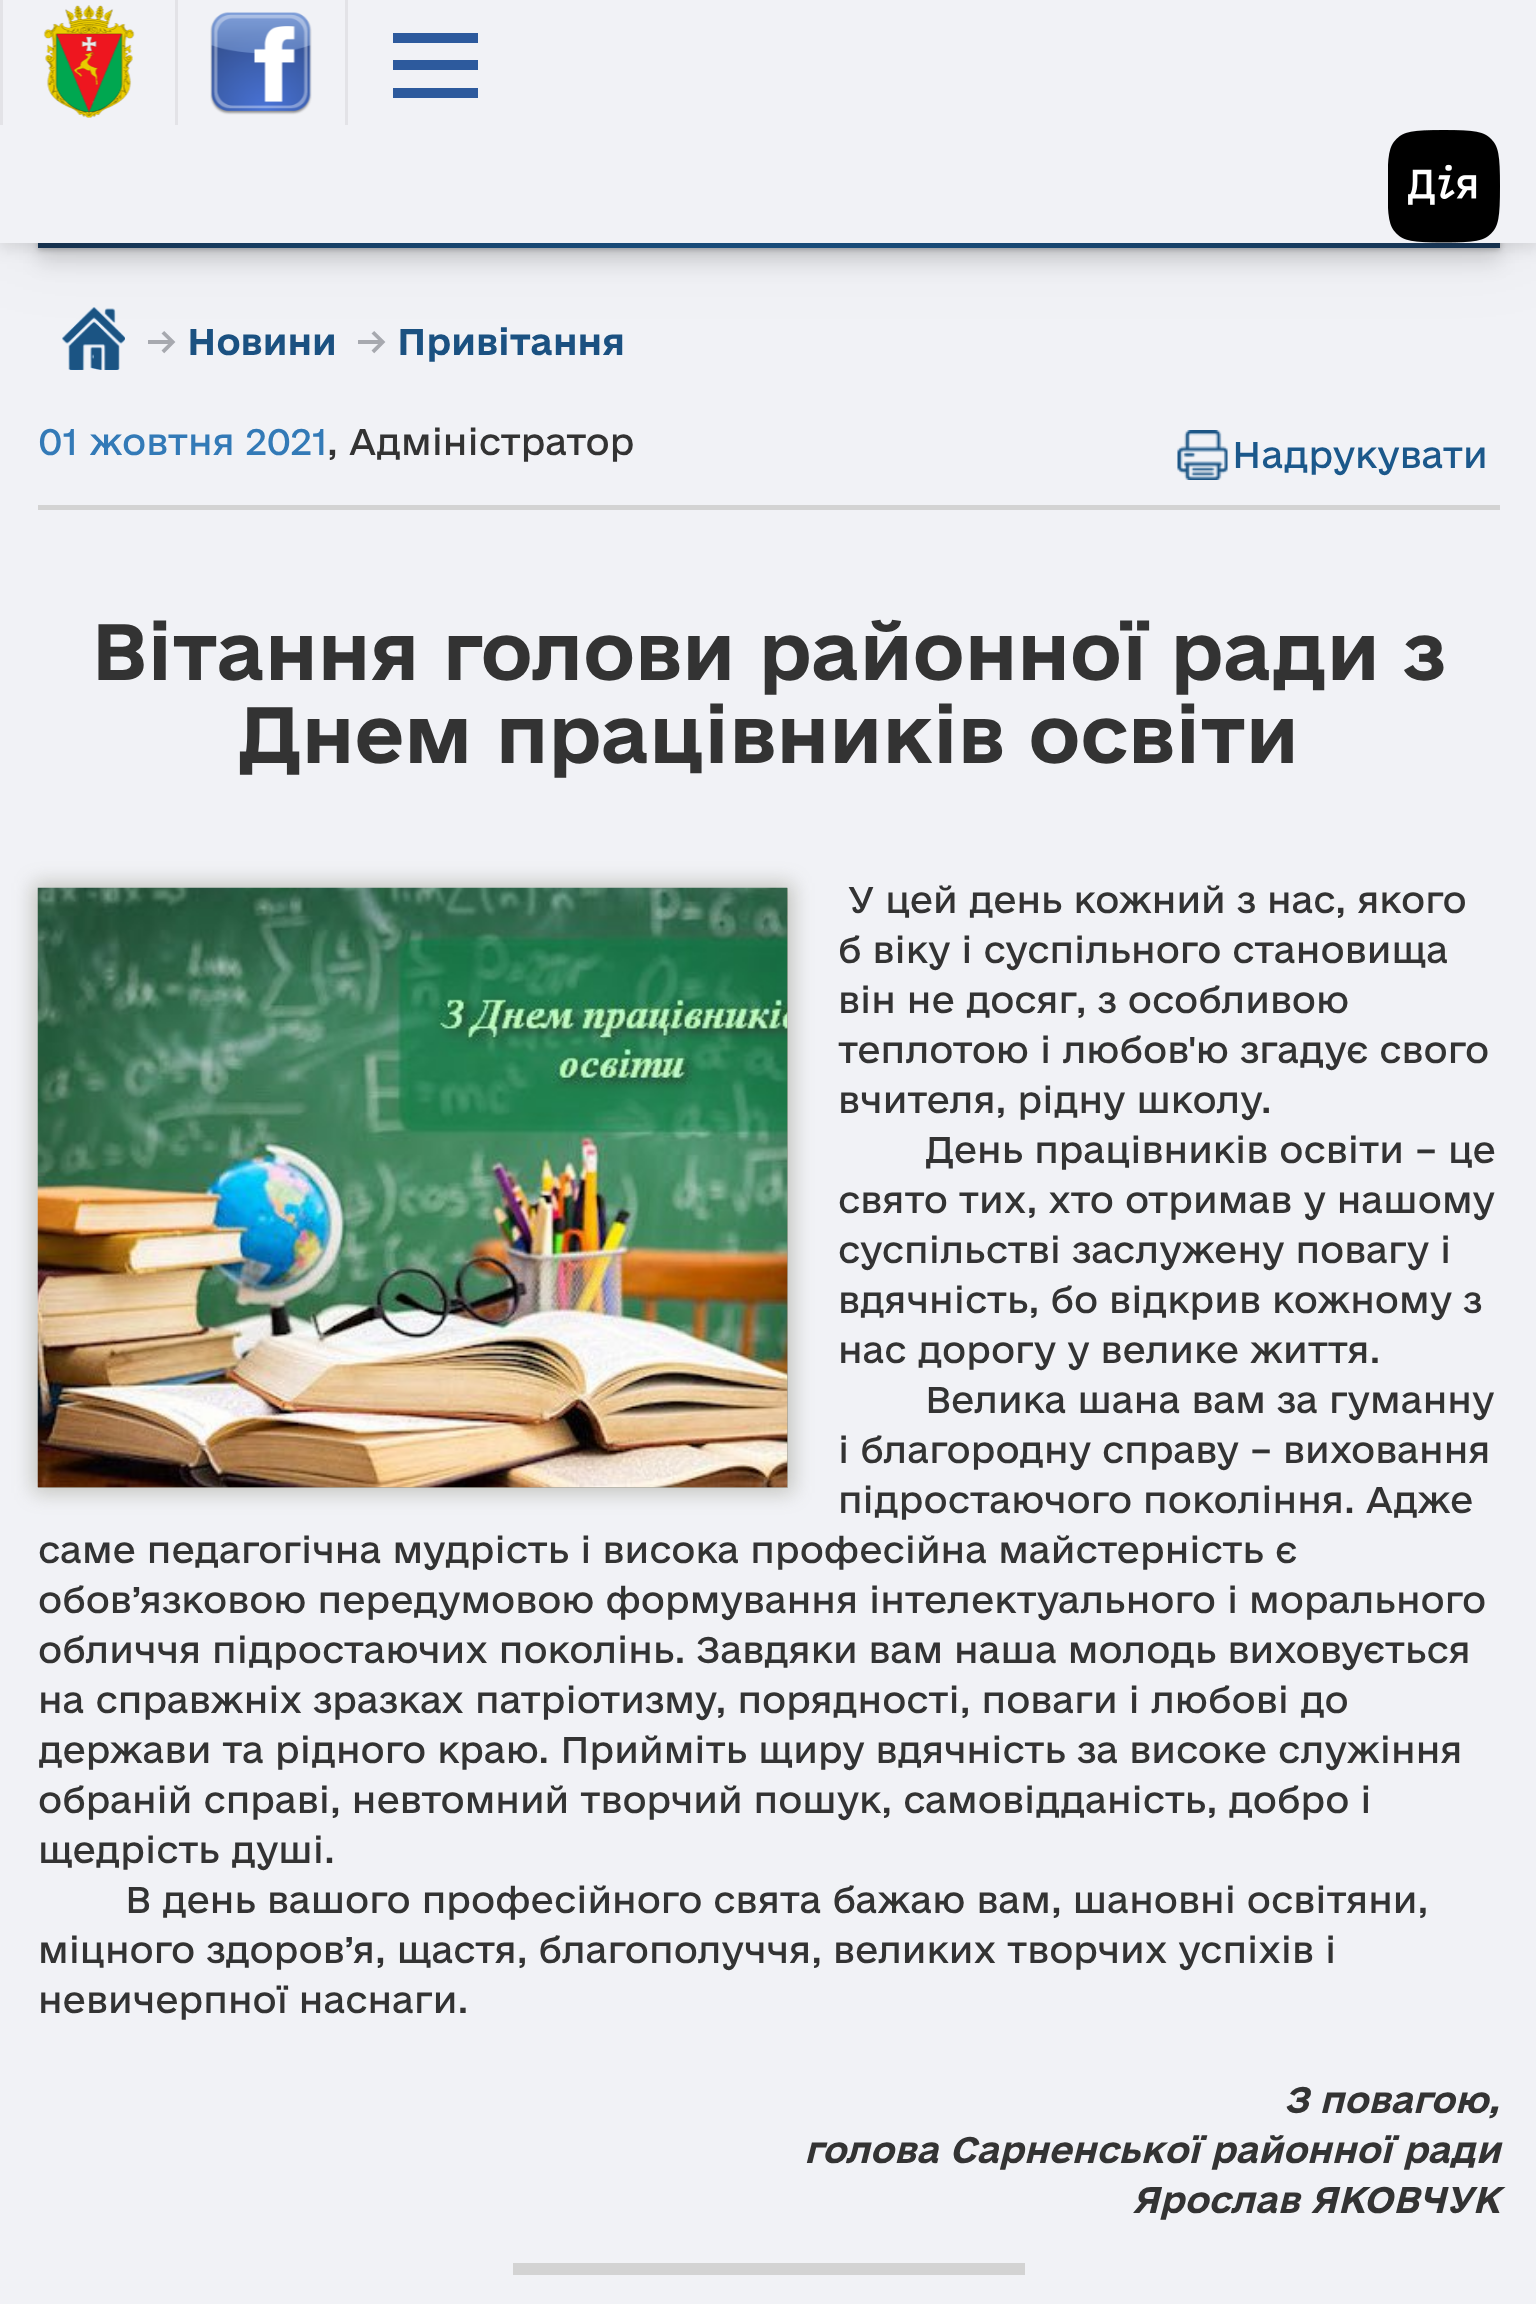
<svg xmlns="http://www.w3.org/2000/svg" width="1536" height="2304">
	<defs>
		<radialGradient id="g1" gradientUnits="userSpaceOnUse" cx="769" cy="-201" r="858"><stop offset="0.2" stop-color="#3974A7" /><stop offset="0.5" stop-color="#1B5689" /><stop offset="1" stop-color="#193757" /></radialGradient>
		<clipPath id="clip1"><rect x="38" y="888" width="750" height="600" /></clipPath>
	</defs>
	<rect width="100%" height="100%" fill="#F1F2F6" />
	<rect x="38" y="-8" width="1462" height="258" fill="#000000" fill-opacity="0.2" filter="blur(2.5px)" />
	<rect x="38" y="-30" width="1462" height="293" fill="#000000" fill-opacity="0.11" filter="blur(10px)" />
	<rect x="38" y="243" width="1462" height="5" fill="url(#g1)" />
	<image x="62" y="307" width="63" height="63" href="assets/img4.png" />
	<rect x="0" y="0" width="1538" height="243" fill="#000000" fill-opacity="0.06" filter="blur(44px)" />
	<rect x="0" y="5" width="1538" height="243" fill="#000000" fill-opacity="0.11" filter="blur(7.5px)" />
	<rect x="0" y="0" width="1536" height="243" fill="#F1F2F6" />
	<rect x="0" y="0" width="3" height="125" fill="#E3E3E7" />
	<image x="43" y="5" width="92" height="113" href="assets/img1.png" />
	<rect x="175" y="0" width="3" height="125" fill="#E3E3E7" />
	<image x="210" y="12" width="102" height="103" href="assets/img2.png" />
	<rect x="345" y="0" width="3" height="125" fill="#E3E3E7" />
	<rect x="393" y="33" width="85" height="10" fill="#2D5A9D" />
	<rect x="393" y="60" width="85" height="10" fill="#2D5A9D" />
	<rect x="393" y="88" width="85" height="10" fill="#2D5A9D" />
	<image x="1388" y="130" width="112" height="113" href="assets/img3.png" />
	<text x="148" y="355" font-family="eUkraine" font-size="35" fill="#A7A9AF">→</text>
	<text x="187" y="355" font-family="eUkraine" font-size="35" font-weight="700" fill="#1B5181">Новини</text>
	<text x="358" y="355" font-family="eUkraine" font-size="35" fill="#A7A9AF">→</text>
	<text x="397" y="355" font-family="eUkraine" font-size="35" font-weight="700" fill="#1B5181">Привітання</text>
	<text x="38" y="455" font-family="eUkraine" font-size="35" fill="#337AB7">01 жовтня 2021</text>
	<text x="327" y="455" font-family="eUkraine" font-size="35" fill="#333333">, Адміністратор</text>
	<image x="1177" y="430" width="51" height="50" href="assets/img5.png" />
	<text x="1232" y="468" font-family="eUkraine" font-size="35" fill="#1B588B">Надрукувати</text>
	<rect x="38" y="505" width="1462" height="5" fill="#D3D3D3" />
	<g font-family="eUkraine" font-size="75" font-weight="700" fill="#333333">
		<text x="91" y="680">Вітання голови районної ради з</text>
		<text x="238" y="763">Днем працівників освіти</text>
	</g>
	<rect x="33" y="883" width="760" height="610" fill="#5A5A40" fill-opacity="0.3" filter="blur(10px)" />
	<g clip-path="url(#clip1)">
		<rect x="33" y="883" width="760" height="610" fill="#5A5A40" fill-opacity="0.3" filter="blur(10px)" />
		<rect x="33" y="883" width="760" height="610" fill="#5A5A40" fill-opacity="0.2" filter="blur(5px)" />
	</g>
	<image x="37" y="887" width="751" height="601" href="assets/img6.png" />
	<g font-family="eUkraine" font-size="35" fill="#333333">
		<text x="848" y="913">У цей день кожний з нас, якого</text>
		<text x="838" y="963">б віку і суспільного становища</text>
		<text x="838" y="1013">він не досяг, з особливою</text>
		<text x="838" y="1063">теплотою і любов'ю згадує свого</text>
		<text x="838" y="1113">вчителя, рідну школу.</text>
		<text x="925" y="1163">День працівників освіти – це</text>
		<text x="838" y="1213">свято тих, хто отримав у нашому</text>
		<text x="838" y="1263">суспільстві заслужену повагу і</text>
		<text x="838" y="1313">вдячність, бо відкрив кожному з</text>
		<text x="838" y="1363">нас дорогу у велике життя.</text>
		<text x="925" y="1413">Велика шана вам за гуманну</text>
		<text x="838" y="1463">і благородну справу – виховання</text>
		<text x="838" y="1513">підростаючого покоління. Адже</text>
		<text x="38" y="1563">саме педагогічна мудрість і висока професійна майстерність є</text>
		<text x="38" y="1613">обов’язковою передумовою формування інтелектуального і морального</text>
		<text x="38" y="1663">обличчя підростаючих поколінь. Завдяки вам наша молодь виховується</text>
		<text x="38" y="1713">на справжніх зразках патріотизму, порядності, поваги і любові до</text>
		<text x="38" y="1763">держави та рідного краю. Прийміть щиру вдячність за високе служіння</text>
		<text x="38" y="1813">обраній справі, невтомний творчий пошук, самовідданість, добро і</text>
		<text x="38" y="1863">щедрість душі.</text>
		<text x="125" y="1913">В день вашого професійного свята бажаю вам, шановні освітяни,</text>
		<text x="38" y="1963">міцного здоров’я, щастя, благополуччя, великих творчих успіхів і</text>
		<text x="38" y="2013">невичерпної наснаги.</text>
	</g>
	<g font-family="eUkraine" font-size="35" font-weight="700" font-style="italic" fill="#333333">
		<text x="1284" y="2113">З повагою,</text>
		<text x="804" y="2163">голова Сарненської районної ради</text>
		<text x="1132" y="2213">Ярослав ЯКОВЧУК</text>
	</g>
	<rect x="513" y="2263" width="512" height="12" fill="#D3D3D3" />
</svg>
